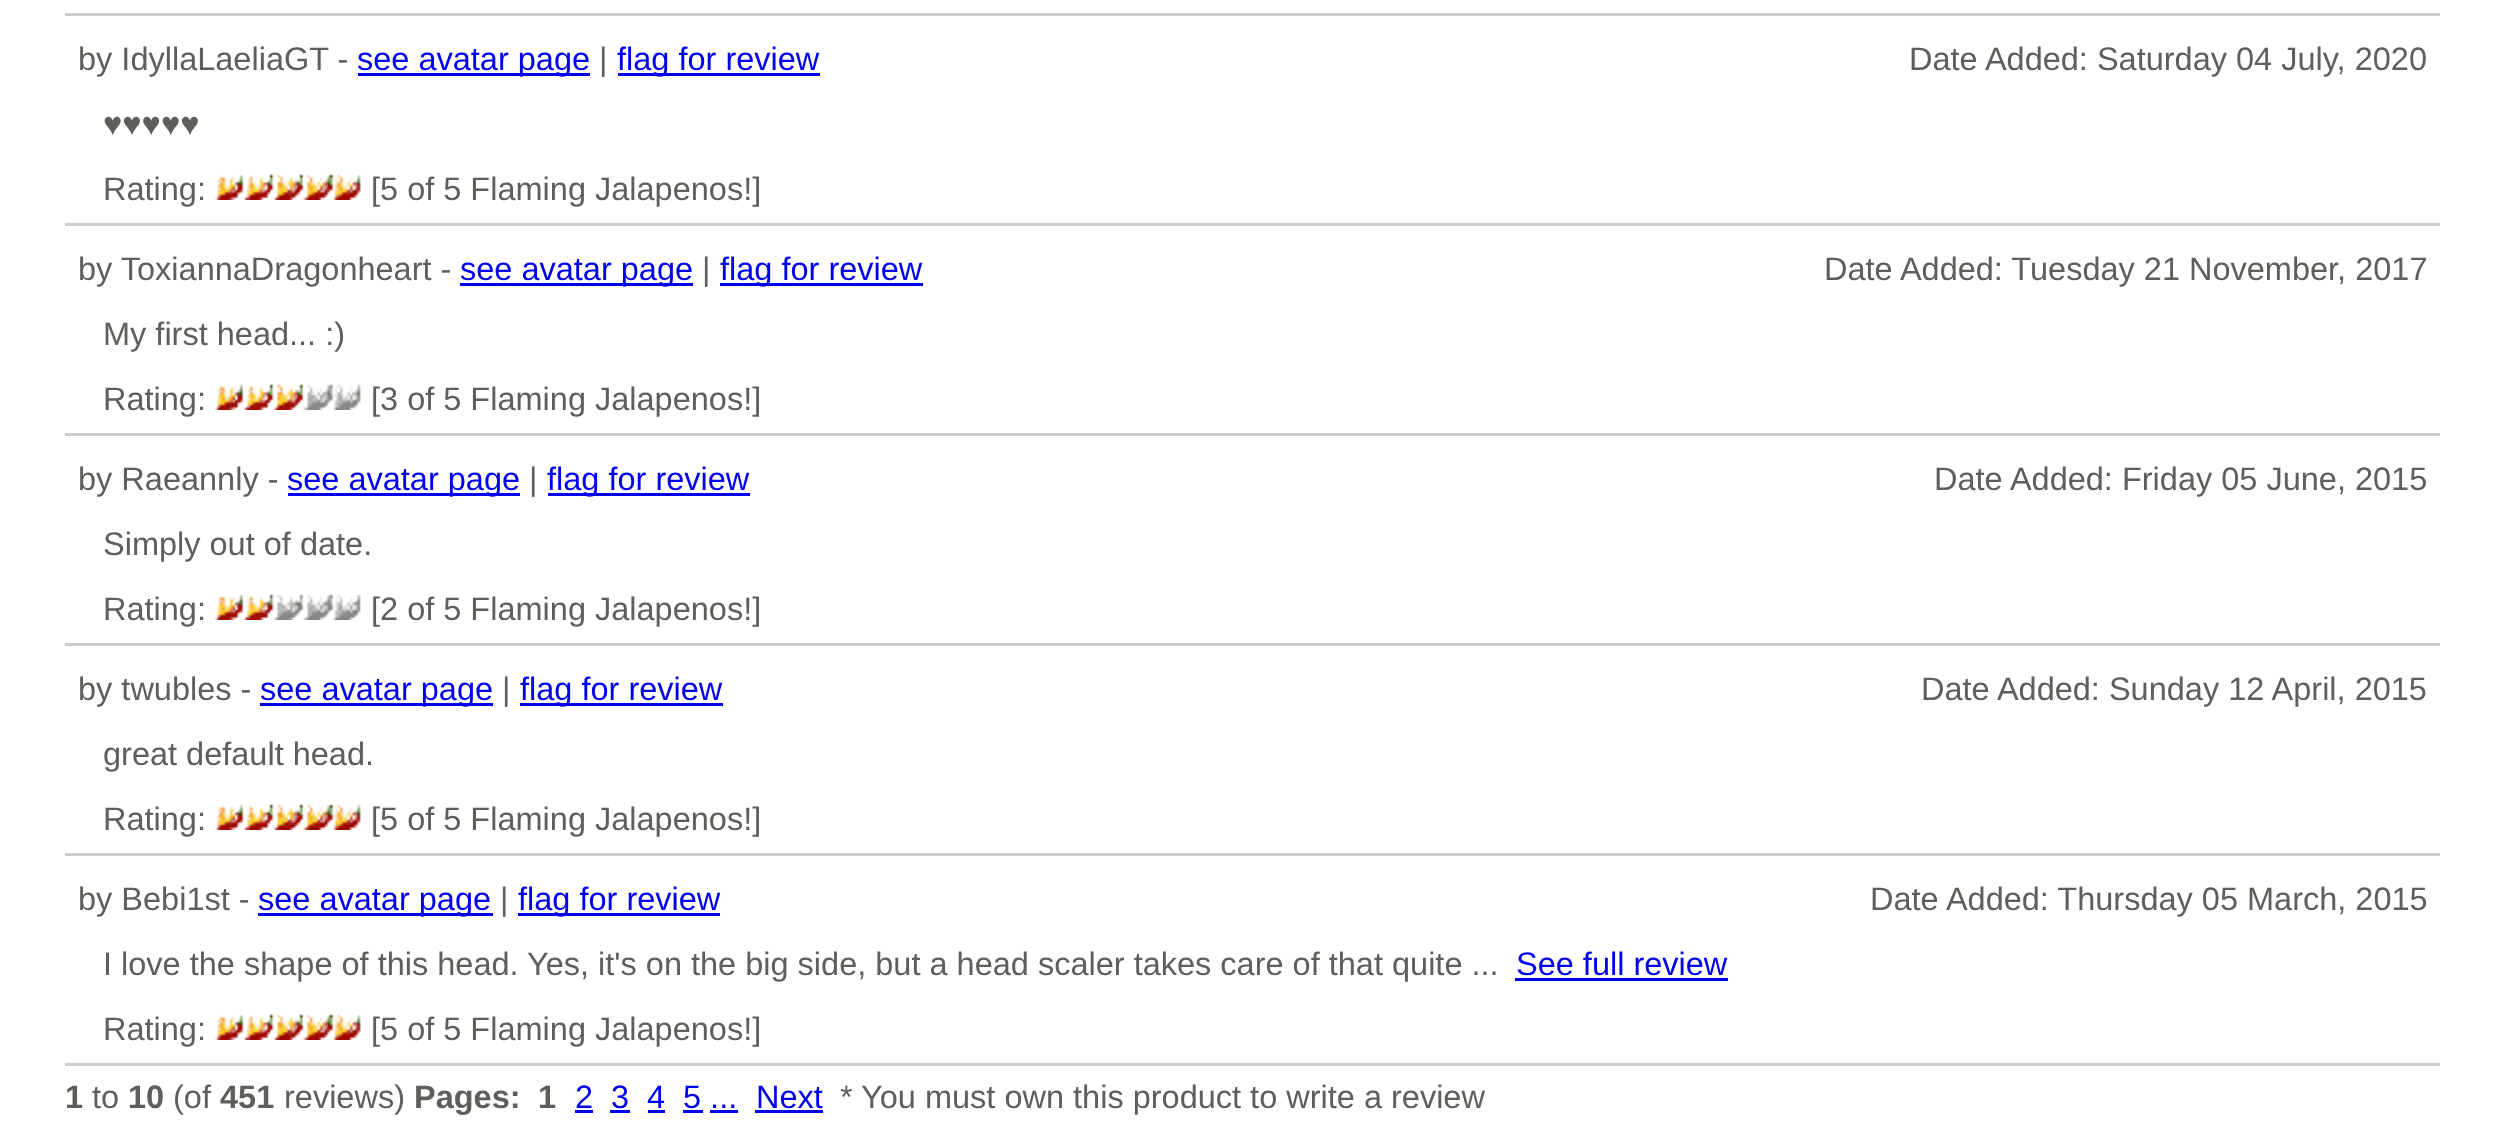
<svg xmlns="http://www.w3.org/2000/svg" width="2504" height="1121">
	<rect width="100%" height="100%" fill="#FFFFFF" />
	<rect x="65" y="13" width="2375" height="3" fill="#CCCCCC" />
	<rect x="65" y="223" width="2375" height="3" fill="#CCCCCC" />
	<text x="78" y="70" font-family="Liberation Sans" font-size="32.5" fill="#5E5F5A">by IdyllaLaeliaGT -</text>
	<rect x="358" y="73" width="232" height="3" fill="#0000EE" />
	<text x="357" y="70" font-family="Liberation Sans" font-size="32.5" fill="#0000EE">see avatar page</text>
	<text x="599" y="70" font-family="Liberation Sans" font-size="32.5" fill="#5E5F5A">|</text>
	<rect x="618" y="73" width="202" height="3" fill="#0000EE" />
	<text x="617" y="70" font-family="Liberation Sans" font-size="32.5" fill="#0000EE">flag for review</text>
	<g font-family="Liberation Sans" font-size="32.5" fill="#5E5F5A">
		<text x="1909" y="70">Date Added: Saturday 04 July, 2020</text>
		<text x="103" y="135">♥♥♥♥♥</text>
		<text x="103" y="200">Rating:</text>
	</g>
	<image x="215" y="174" width="146" height="26" href="assets/img1.png" />
	<text x="371" y="200" font-family="Liberation Sans" font-size="32.5" fill="#5E5F5A">[5 of 5 Flaming Jalapenos!]</text>
	<rect x="65" y="433" width="2375" height="3" fill="#CCCCCC" />
	<text x="78" y="280" font-family="Liberation Sans" font-size="32.5" fill="#5E5F5A">by ToxiannaDragonheart -</text>
	<rect x="460" y="283" width="233" height="3" fill="#0000EE" />
	<text x="460" y="280" font-family="Liberation Sans" font-size="32.5" fill="#0000EE">see avatar page</text>
	<text x="702" y="280" font-family="Liberation Sans" font-size="32.5" fill="#5E5F5A">|</text>
	<rect x="720" y="283" width="203" height="3" fill="#0000EE" />
	<text x="720" y="280" font-family="Liberation Sans" font-size="32.5" fill="#0000EE">flag for review</text>
	<g font-family="Liberation Sans" font-size="32.5" fill="#5E5F5A">
		<text x="1824" y="280">Date Added: Tuesday 21 November, 2017</text>
		<text x="103" y="345">My first head... :)</text>
		<text x="103" y="410">Rating:</text>
	</g>
	<image x="215" y="384" width="146" height="26" href="assets/img2.png" />
	<text x="371" y="410" font-family="Liberation Sans" font-size="32.5" fill="#5E5F5A">[3 of 5 Flaming Jalapenos!]</text>
	<rect x="65" y="643" width="2375" height="3" fill="#CCCCCC" />
	<text x="78" y="490" font-family="Liberation Sans" font-size="32.5" fill="#5E5F5A">by Raeannly -</text>
	<rect x="288" y="493" width="232" height="3" fill="#0000EE" />
	<text x="287" y="490" font-family="Liberation Sans" font-size="32.5" fill="#0000EE">see avatar page</text>
	<text x="529" y="490" font-family="Liberation Sans" font-size="32.5" fill="#5E5F5A">|</text>
	<rect x="548" y="493" width="202" height="3" fill="#0000EE" />
	<text x="547" y="490" font-family="Liberation Sans" font-size="32.5" fill="#0000EE">flag for review</text>
	<g font-family="Liberation Sans" font-size="32.5" fill="#5E5F5A">
		<text x="1934" y="490">Date Added: Friday 05 June, 2015</text>
		<text x="103" y="555">Simply out of date.</text>
		<text x="103" y="620">Rating:</text>
	</g>
	<image x="215" y="594" width="146" height="26" href="assets/img3.png" />
	<text x="371" y="620" font-family="Liberation Sans" font-size="32.5" fill="#5E5F5A">[2 of 5 Flaming Jalapenos!]</text>
	<rect x="65" y="853" width="2375" height="3" fill="#CCCCCC" />
	<text x="78" y="700" font-family="Liberation Sans" font-size="32.5" fill="#5E5F5A">by twubles -</text>
	<rect x="260" y="703" width="233" height="3" fill="#0000EE" />
	<text x="260" y="700" font-family="Liberation Sans" font-size="32.5" fill="#0000EE">see avatar page</text>
	<text x="502" y="700" font-family="Liberation Sans" font-size="32.5" fill="#5E5F5A">|</text>
	<rect x="520" y="703" width="203" height="3" fill="#0000EE" />
	<text x="520" y="700" font-family="Liberation Sans" font-size="32.5" fill="#0000EE">flag for review</text>
	<g font-family="Liberation Sans" font-size="32.5" fill="#5E5F5A">
		<text x="1921" y="700">Date Added: Sunday 12 April, 2015</text>
		<text x="103" y="765">great default head.</text>
		<text x="103" y="830">Rating:</text>
	</g>
	<image x="215" y="804" width="146" height="26" href="assets/img1.png" />
	<text x="371" y="830" font-family="Liberation Sans" font-size="32.5" fill="#5E5F5A">[5 of 5 Flaming Jalapenos!]</text>
	<rect x="65" y="1063" width="2375" height="3" fill="#CCCCCC" />
	<text x="78" y="910" font-family="Liberation Sans" font-size="32.5" fill="#5E5F5A">by Bebi1st -</text>
	<rect x="258" y="913" width="235" height="3" fill="#0000EE" />
	<text x="258" y="910" font-family="Liberation Sans" font-size="32.5" fill="#0000EE">see avatar page</text>
	<text x="500" y="910" font-family="Liberation Sans" font-size="32.5" fill="#5E5F5A">|</text>
	<rect x="518" y="913" width="202" height="3" fill="#0000EE" />
	<text x="518" y="910" font-family="Liberation Sans" font-size="32.5" fill="#0000EE">flag for review</text>
	<g font-family="Liberation Sans" font-size="32.5" fill="#5E5F5A">
		<text x="1870" y="910">Date Added: Thursday 05 March, 2015</text>
		<text x="103" y="975">I love the shape of this head. Yes, it's on the big side, but a head scaler takes care of that quite ...</text>
	</g>
	<text x="1516" y="975" font-family="Liberation Sans" font-size="32.5" fill="#0000EE">See full review</text>
	<rect x="1515" y="978" width="213" height="3" fill="#0000EE" />
	<text x="103" y="1040" font-family="Liberation Sans" font-size="32.5" fill="#5E5F5A">Rating:</text>
	<image x="215" y="1014" width="146" height="26" href="assets/img1.png" />
	<text x="371" y="1040" font-family="Liberation Sans" font-size="32.5" fill="#5E5F5A">[5 of 5 Flaming Jalapenos!]</text>
	<text x="65" y="1108" font-family="Liberation Sans" font-size="32.5" font-weight="700" fill="#5E5F5A">1</text>
	<text x="92" y="1108" font-family="Liberation Sans" font-size="32.5" fill="#5E5F5A">to</text>
	<text x="128" y="1108" font-family="Liberation Sans" font-size="32.5" font-weight="700" fill="#5E5F5A">10</text>
	<text x="173" y="1108" font-family="Liberation Sans" font-size="32.5" fill="#5E5F5A">(of</text>
	<text x="220" y="1108" font-family="Liberation Sans" font-size="32.5" font-weight="700" fill="#5E5F5A">451</text>
	<text x="284" y="1108" font-family="Liberation Sans" font-size="32.5" fill="#5E5F5A">reviews)</text>
	<g font-family="Liberation Sans" font-size="32.5" font-weight="700" fill="#5E5F5A">
		<text x="414" y="1108">Pages:</text>
		<text x="538" y="1108">1</text>
	</g>
	<text x="575" y="1108" font-family="Liberation Sans" font-size="32.5" fill="#0000EE">2</text>
	<rect x="575" y="1110" width="18" height="3" fill="#0000EE" />
	<text x="611" y="1108" font-family="Liberation Sans" font-size="32.5" fill="#0000EE">3</text>
	<rect x="610" y="1110" width="20" height="3" fill="#0000EE" />
	<text x="647" y="1108" font-family="Liberation Sans" font-size="32.5" fill="#0000EE">4</text>
	<rect x="648" y="1110" width="17" height="3" fill="#0000EE" />
	<text x="683" y="1108" font-family="Liberation Sans" font-size="32.5" fill="#0000EE">5 ...</text>
	<rect x="683" y="1110" width="20" height="3" fill="#0000EE" />
	<text x="756" y="1108" font-family="Liberation Sans" font-size="32.5" fill="#0000EE">Next</text>
	<rect x="755" y="1110" width="68" height="3" fill="#0000EE" />
	<text x="840" y="1108" font-family="Liberation Sans" font-size="32.5" fill="#5E5F5A">* You must own this product to write a review</text>
	<rect x="710" y="1110" width="28" height="3" fill="#0000EE" />
</svg>
